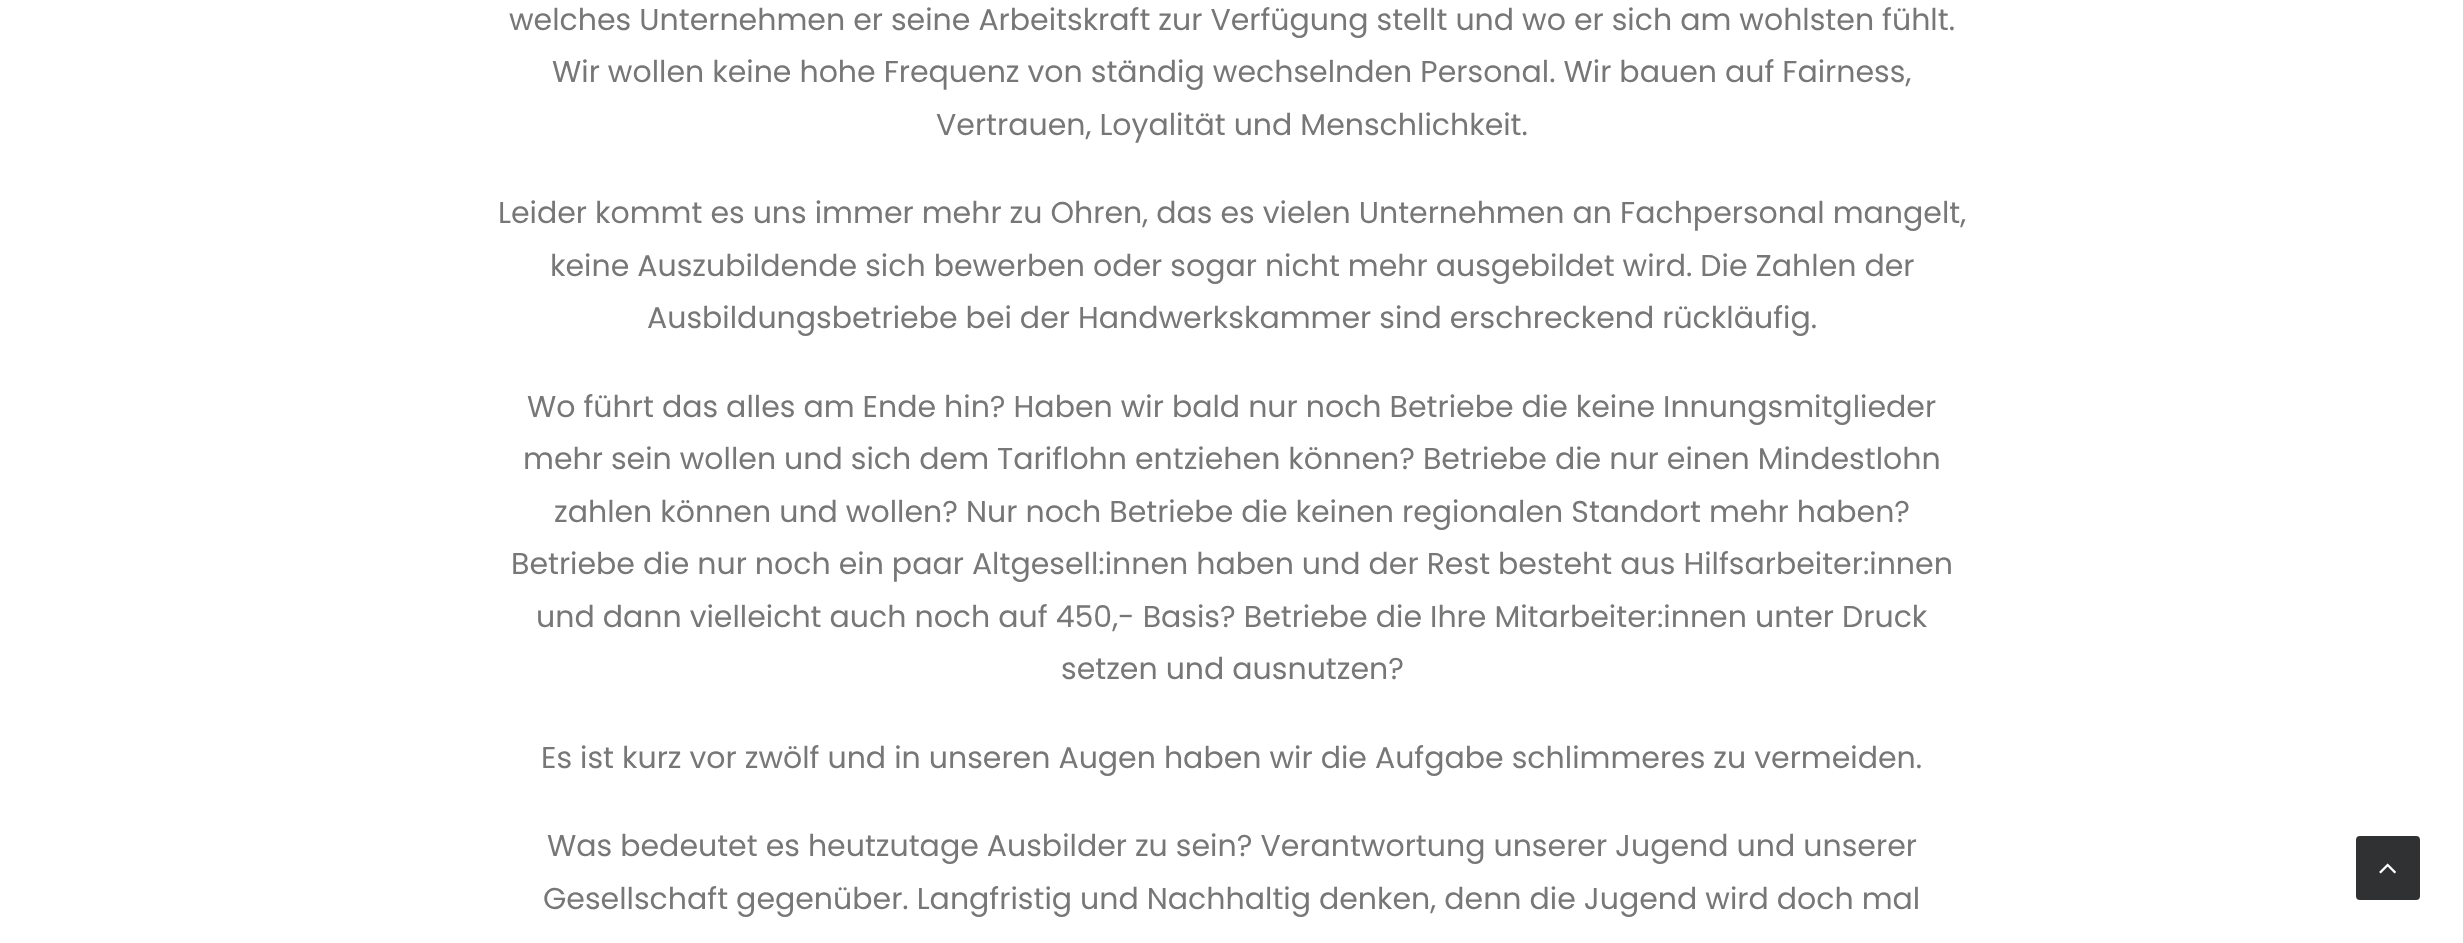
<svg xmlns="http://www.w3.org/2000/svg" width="2463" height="943">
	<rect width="100%" height="100%" fill="#FFFFFF" />
	<g font-family="Poppins" font-size="30" fill="#777777">
		<text x="509" y="30">welches Unternehmen er seine Arbeitskraft zur Verfügung stellt und wo er sich am wohlsten fühlt.</text>
		<text x="552" y="82">Wir wollen keine hohe Frequenz von ständig wechselnden Personal. Wir bauen auf Fairness,</text>
		<text x="936" y="135">Vertrauen, Loyalität und Menschlichkeit.</text>
		<text x="498" y="223">Leider kommt es uns immer mehr zu Ohren, das es vielen Unternehmen an Fachpersonal mangelt,</text>
		<text x="550" y="276">keine Auszubildende sich bewerben oder sogar nicht mehr ausgebildet wird. Die Zahlen der</text>
		<text x="647" y="328">Ausbildungsbetriebe bei der Handwerkskammer sind erschreckend rückläufig.</text>
		<text x="527" y="417">Wo führt das alles am Ende hin? Haben wir bald nur noch Betriebe die keine Innungsmitglieder</text>
		<text x="523" y="469">mehr sein wollen und sich dem Tariflohn entziehen können? Betriebe die nur einen Mindestlohn</text>
		<text x="554" y="522">zahlen können und wollen? Nur noch Betriebe die keinen regionalen Standort mehr haben?</text>
		<text x="511" y="574">Betriebe die nur noch ein paar Altgesell:innen haben und der Rest besteht aus Hilfsarbeiter:innen</text>
		<text x="536" y="627">und dann vielleicht auch noch auf 450,- Basis? Betriebe die Ihre Mitarbeiter:innen unter Druck</text>
		<text x="1061" y="679">setzen und ausnutzen?</text>
		<text x="541" y="768">Es ist kurz vor zwölf und in unseren Augen haben wir die Aufgabe schlimmeres zu vermeiden.</text>
		<text x="547" y="856">Was bedeutet es heutzutage Ausbilder zu sein? Verantwortung unserer Jugend und unserer</text>
		<text x="543" y="909">Gesellschaft gegenüber. Langfristig und Nachhaltig denken, denn die Jugend wird doch mal</text>
	</g>
	<rect x="2357" y="837" width="62" height="62" rx="3" fill="#303133" stroke="#303133" stroke-width="2" />
	<image x="2379" y="863" width="17" height="11" href="assets/img1.png" />
</svg>
